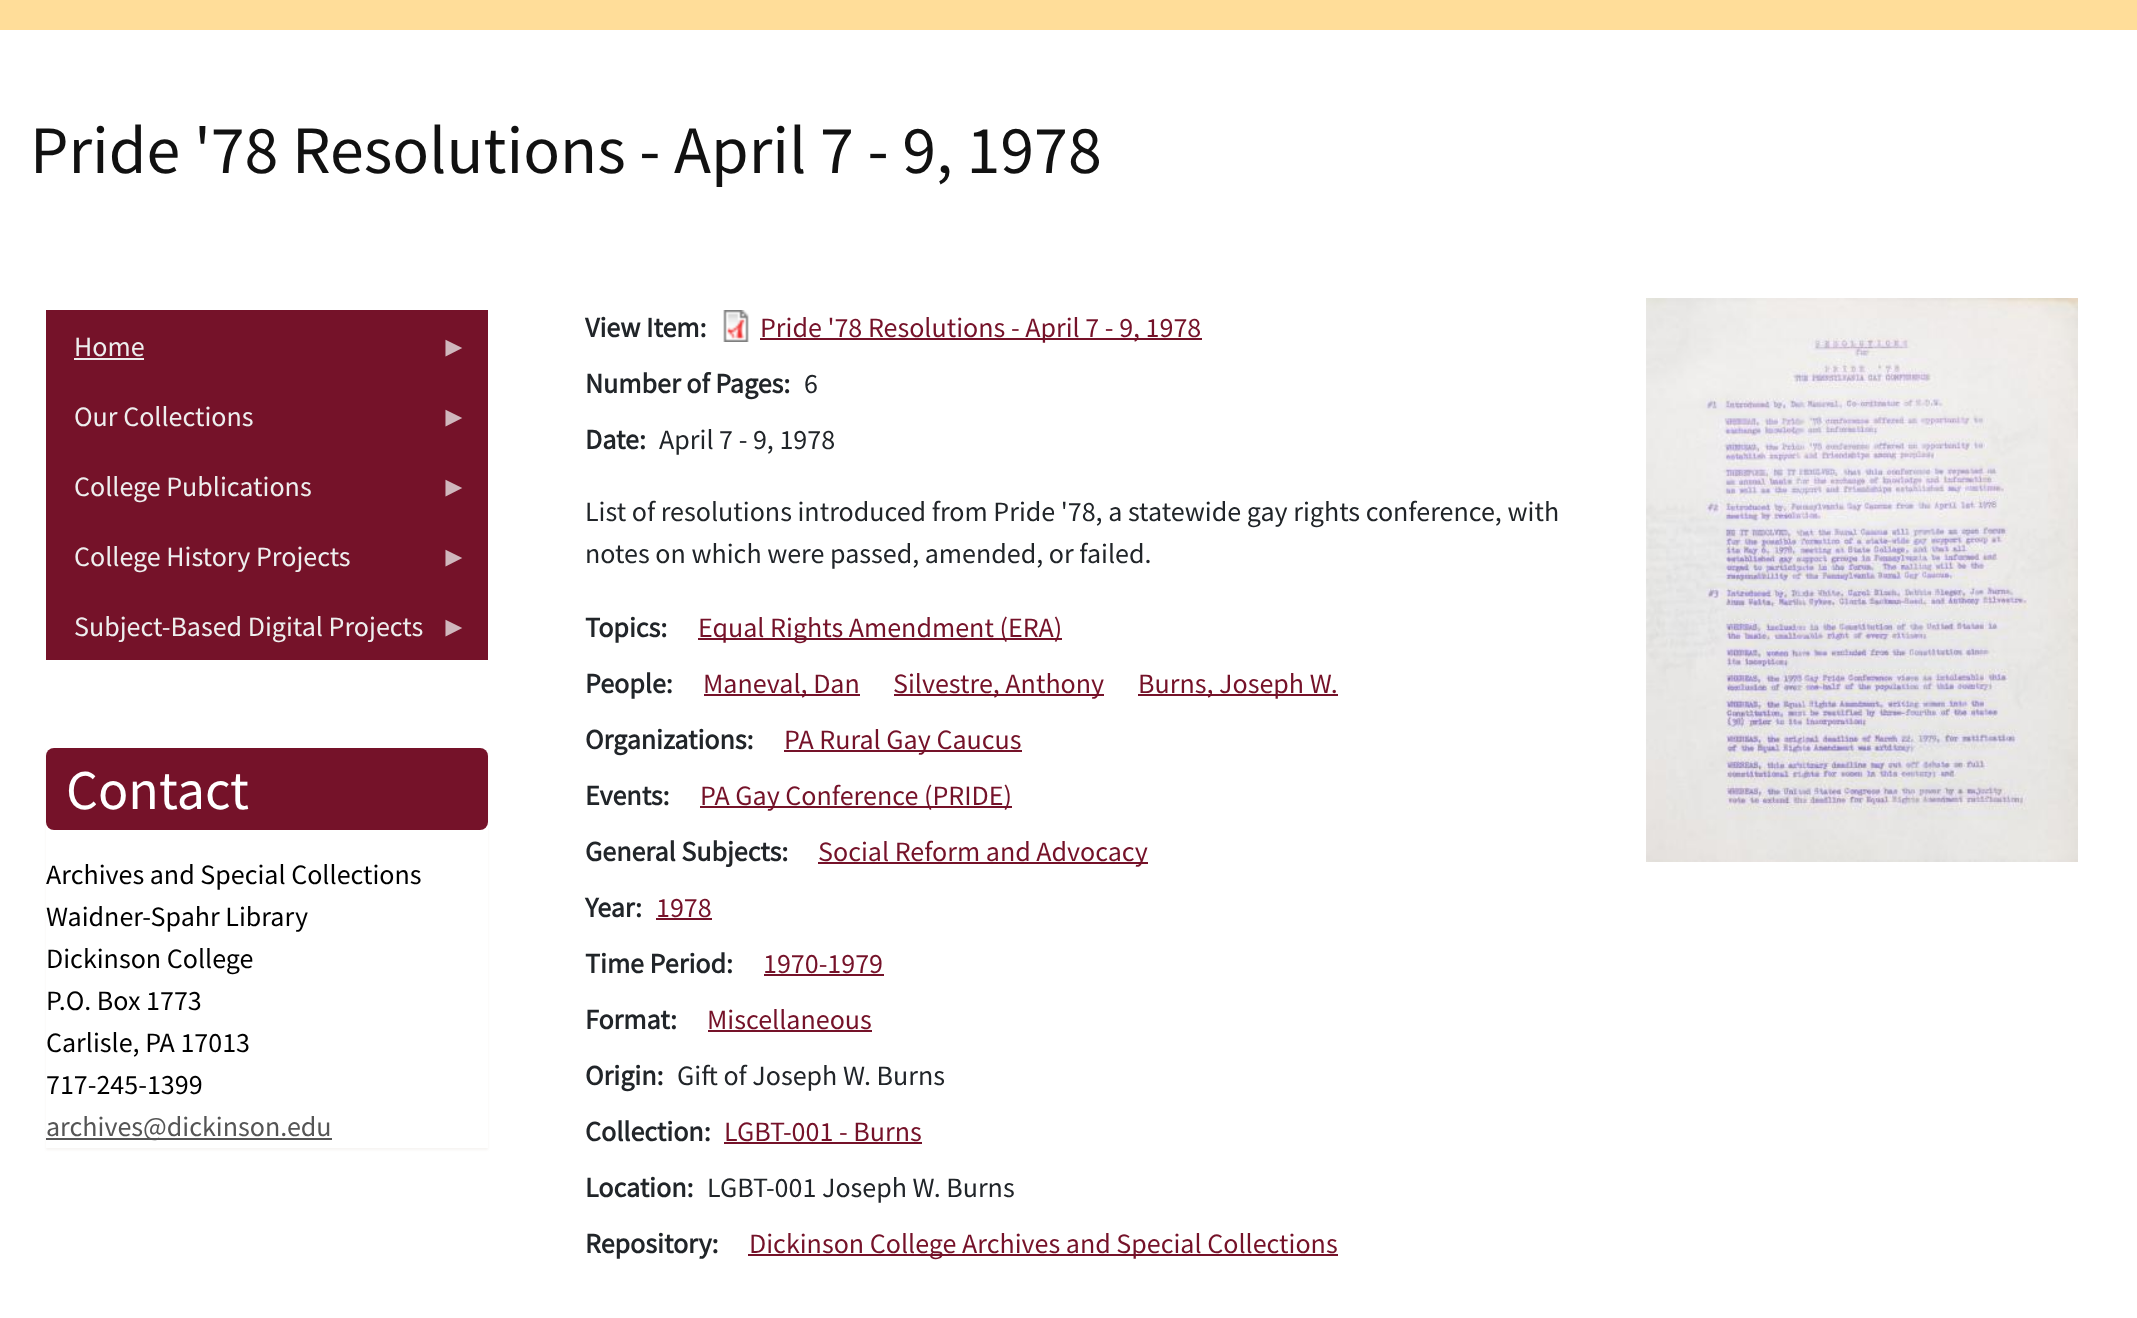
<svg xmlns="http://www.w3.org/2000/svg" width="2137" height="1318">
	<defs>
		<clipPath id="clip1"><path d="M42 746H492V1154H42ZM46 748H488V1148H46Z" clip-rule="evenodd" /></clipPath>
	</defs>
	<rect width="100%" height="100%" fill="#FFFFFF" />
	<rect x="0" y="0" width="2137" height="30" fill="#FFDD99" />
	<text x="30" y="173" font-family="Source Sans Pro" font-size="68" fill="#111111">Pride '78 Resolutions - April 7 - 9, 1978</text>
	<rect x="46" y="310" width="442" height="350" fill="#751229" />
	<text x="74" y="356" font-family="Source Sans Pro" font-size="28" fill="#EEEEEE">Home</text>
	<rect x="74" y="358" width="70" height="2" fill="#EEEEEE" />
	<text x="440" y="356" font-family="Liberation Serif" font-size="28" fill="#D0B7BD">►</text>
	<text x="74" y="426" font-family="Source Sans Pro" font-size="28" fill="#EEEEEE">Our Collections</text>
	<text x="440" y="426" font-family="Liberation Serif" font-size="28" fill="#D0B7BD">►</text>
	<text x="74" y="496" font-family="Source Sans Pro" font-size="28" fill="#EEEEEE">College Publications</text>
	<text x="440" y="496" font-family="Liberation Serif" font-size="28" fill="#D0B7BD">►</text>
	<text x="74" y="566" font-family="Source Sans Pro" font-size="28" fill="#EEEEEE">College History Projects</text>
	<text x="440" y="566" font-family="Liberation Serif" font-size="28" fill="#D0B7BD">►</text>
	<text x="74" y="636" font-family="Source Sans Pro" font-size="28" fill="#EEEEEE">Subject-Based Digital Projects</text>
	<text x="440" y="636" font-family="Liberation Serif" font-size="28" fill="#D0B7BD">►</text>
	<g clip-path="url(#clip1)">
		<rect x="46" y="750" width="442" height="400" fill="#A6977C" fill-opacity="0.1" filter="blur(1px)" />
	</g>
	<rect x="46" y="748" width="442" height="82" rx="8" fill="#751229" />
	<text x="66" y="809" font-family="Source Sans Pro" font-size="56" fill="#FFFFFF">Contact</text>
	<g font-family="Source Sans Pro" font-size="28" fill="#000000">
		<text x="46" y="884">Archives and Special Collections</text>
		<text x="46" y="926">Waidner-Spahr Library</text>
		<text x="46" y="968">Dickinson College</text>
		<text x="46" y="1010">P.O. Box 1773</text>
		<text x="46" y="1052">Carlisle, PA 17013</text>
		<text x="46" y="1094">717-245-1399</text>
	</g>
	<rect x="46" y="1138" width="286" height="2" fill="#555555" />
	<text x="46" y="1136" font-family="Source Sans Pro" font-size="28" fill="#555555">archives@dickinson.edu</text>
	<text x="585" y="337" font-family="Source Sans Pro" font-size="28" font-weight="700" fill="#212529">View Item:</text>
	<image x="723" y="310" width="26" height="32" href="assets/img1.png" />
	<rect x="760" y="338" width="442" height="2" fill="#751229" />
	<text x="760" y="337" font-family="Source Sans Pro" font-size="28" fill="#751229">Pride '78 Resolutions - April 7 - 9, 1978</text>
	<text x="585" y="393" font-family="Source Sans Pro" font-size="28" font-weight="700" fill="#212529">Number of Pages:</text>
	<text x="804" y="393" font-family="Source Sans Pro" font-size="28" fill="#212529">6</text>
	<text x="585" y="449" font-family="Source Sans Pro" font-size="28" font-weight="700" fill="#212529">Date:</text>
	<g font-family="Source Sans Pro" font-size="28" fill="#212529">
		<text x="659" y="449">April 7 - 9, 1978</text>
		<text x="585" y="521">List of resolutions introduced from Pride '78, a statewide gay rights conference, with</text>
		<text x="585" y="563">notes on which were passed, amended, or failed.</text>
	</g>
	<text x="585" y="637" font-family="Source Sans Pro" font-size="28" font-weight="700" fill="#212529">Topics:</text>
	<rect x="698" y="638" width="364" height="2" fill="#751229" />
	<text x="698" y="637" font-family="Source Sans Pro" font-size="28" fill="#751229">Equal Rights Amendment (ERA)</text>
	<text x="585" y="693" font-family="Source Sans Pro" font-size="28" font-weight="700" fill="#212529">People:</text>
	<rect x="704" y="694" width="156" height="2" fill="#751229" />
	<text x="703" y="693" font-family="Source Sans Pro" font-size="28" fill="#751229">Maneval, Dan</text>
	<rect x="894" y="694" width="210" height="2" fill="#751229" />
	<text x="893" y="693" font-family="Source Sans Pro" font-size="28" fill="#751229">Silvestre, Anthony</text>
	<rect x="1138" y="694" width="200" height="2" fill="#751229" />
	<text x="1138" y="693" font-family="Source Sans Pro" font-size="28" fill="#751229">Burns, Joseph W.</text>
	<text x="585" y="749" font-family="Source Sans Pro" font-size="28" font-weight="700" fill="#212529">Organizations:</text>
	<rect x="784" y="750" width="238" height="2" fill="#751229" />
	<text x="784" y="749" font-family="Source Sans Pro" font-size="28" fill="#751229">PA Rural Gay Caucus</text>
	<text x="585" y="805" font-family="Source Sans Pro" font-size="28" font-weight="700" fill="#212529">Events:</text>
	<rect x="700" y="806" width="312" height="2" fill="#751229" />
	<text x="700" y="805" font-family="Source Sans Pro" font-size="28" fill="#751229">PA Gay Conference (PRIDE)</text>
	<text x="585" y="861" font-family="Source Sans Pro" font-size="28" font-weight="700" fill="#212529">General Subjects:</text>
	<rect x="818" y="862" width="330" height="2" fill="#751229" />
	<text x="818" y="861" font-family="Source Sans Pro" font-size="28" fill="#751229">Social Reform and Advocacy</text>
	<g font-family="Source Sans Pro" font-size="28" font-weight="700" fill="#212529">
		<text x="585" y="917">Year</text>
		<text x="635" y="917">:</text>
	</g>
	<text x="656" y="917" font-family="Source Sans Pro" font-size="28" fill="#751229">1978</text>
	<rect x="656" y="918" width="56" height="2" fill="#751229" />
	<text x="585" y="973" font-family="Source Sans Pro" font-size="28" font-weight="700" fill="#212529">Time Period:</text>
	<text x="763" y="973" font-family="Source Sans Pro" font-size="28" fill="#751229">1970-1979</text>
	<rect x="764" y="974" width="120" height="2" fill="#751229" />
	<g font-family="Source Sans Pro" font-size="28" font-weight="700" fill="#212529">
		<text x="585" y="1029">Format</text>
		<text x="670" y="1029">:</text>
	</g>
	<text x="707" y="1029" font-family="Source Sans Pro" font-size="28" fill="#751229">Miscellaneous</text>
	<rect x="708" y="1030" width="164" height="2" fill="#751229" />
	<text x="585" y="1085" font-family="Source Sans Pro" font-size="28" font-weight="700" fill="#212529">Origin:</text>
	<text x="677" y="1085" font-family="Source Sans Pro" font-size="28" fill="#212529">Gift of Joseph W. Burns</text>
	<text x="585" y="1141" font-family="Source Sans Pro" font-size="28" font-weight="700" fill="#212529">Collection:</text>
	<text x="724" y="1141" font-family="Source Sans Pro" font-size="28" fill="#751229">LGBT-001 - Burns</text>
	<rect x="724" y="1142" width="198" height="2" fill="#751229" />
	<text x="585" y="1197" font-family="Source Sans Pro" font-size="28" font-weight="700" fill="#212529">Location:</text>
	<text x="707" y="1197" font-family="Source Sans Pro" font-size="28" fill="#212529">LGBT-001 Joseph W. Burns</text>
	<text x="585" y="1253" font-family="Source Sans Pro" font-size="28" font-weight="700" fill="#212529">Repository:</text>
	<rect x="748" y="1254" width="590" height="2" fill="#751229" />
	<text x="749" y="1253" font-family="Source Sans Pro" font-size="28" fill="#751229">Dickinson College Archives and Special Collections</text>
	<image x="1646" y="298" width="432" height="564" href="assets/img2.png" />
</svg>
